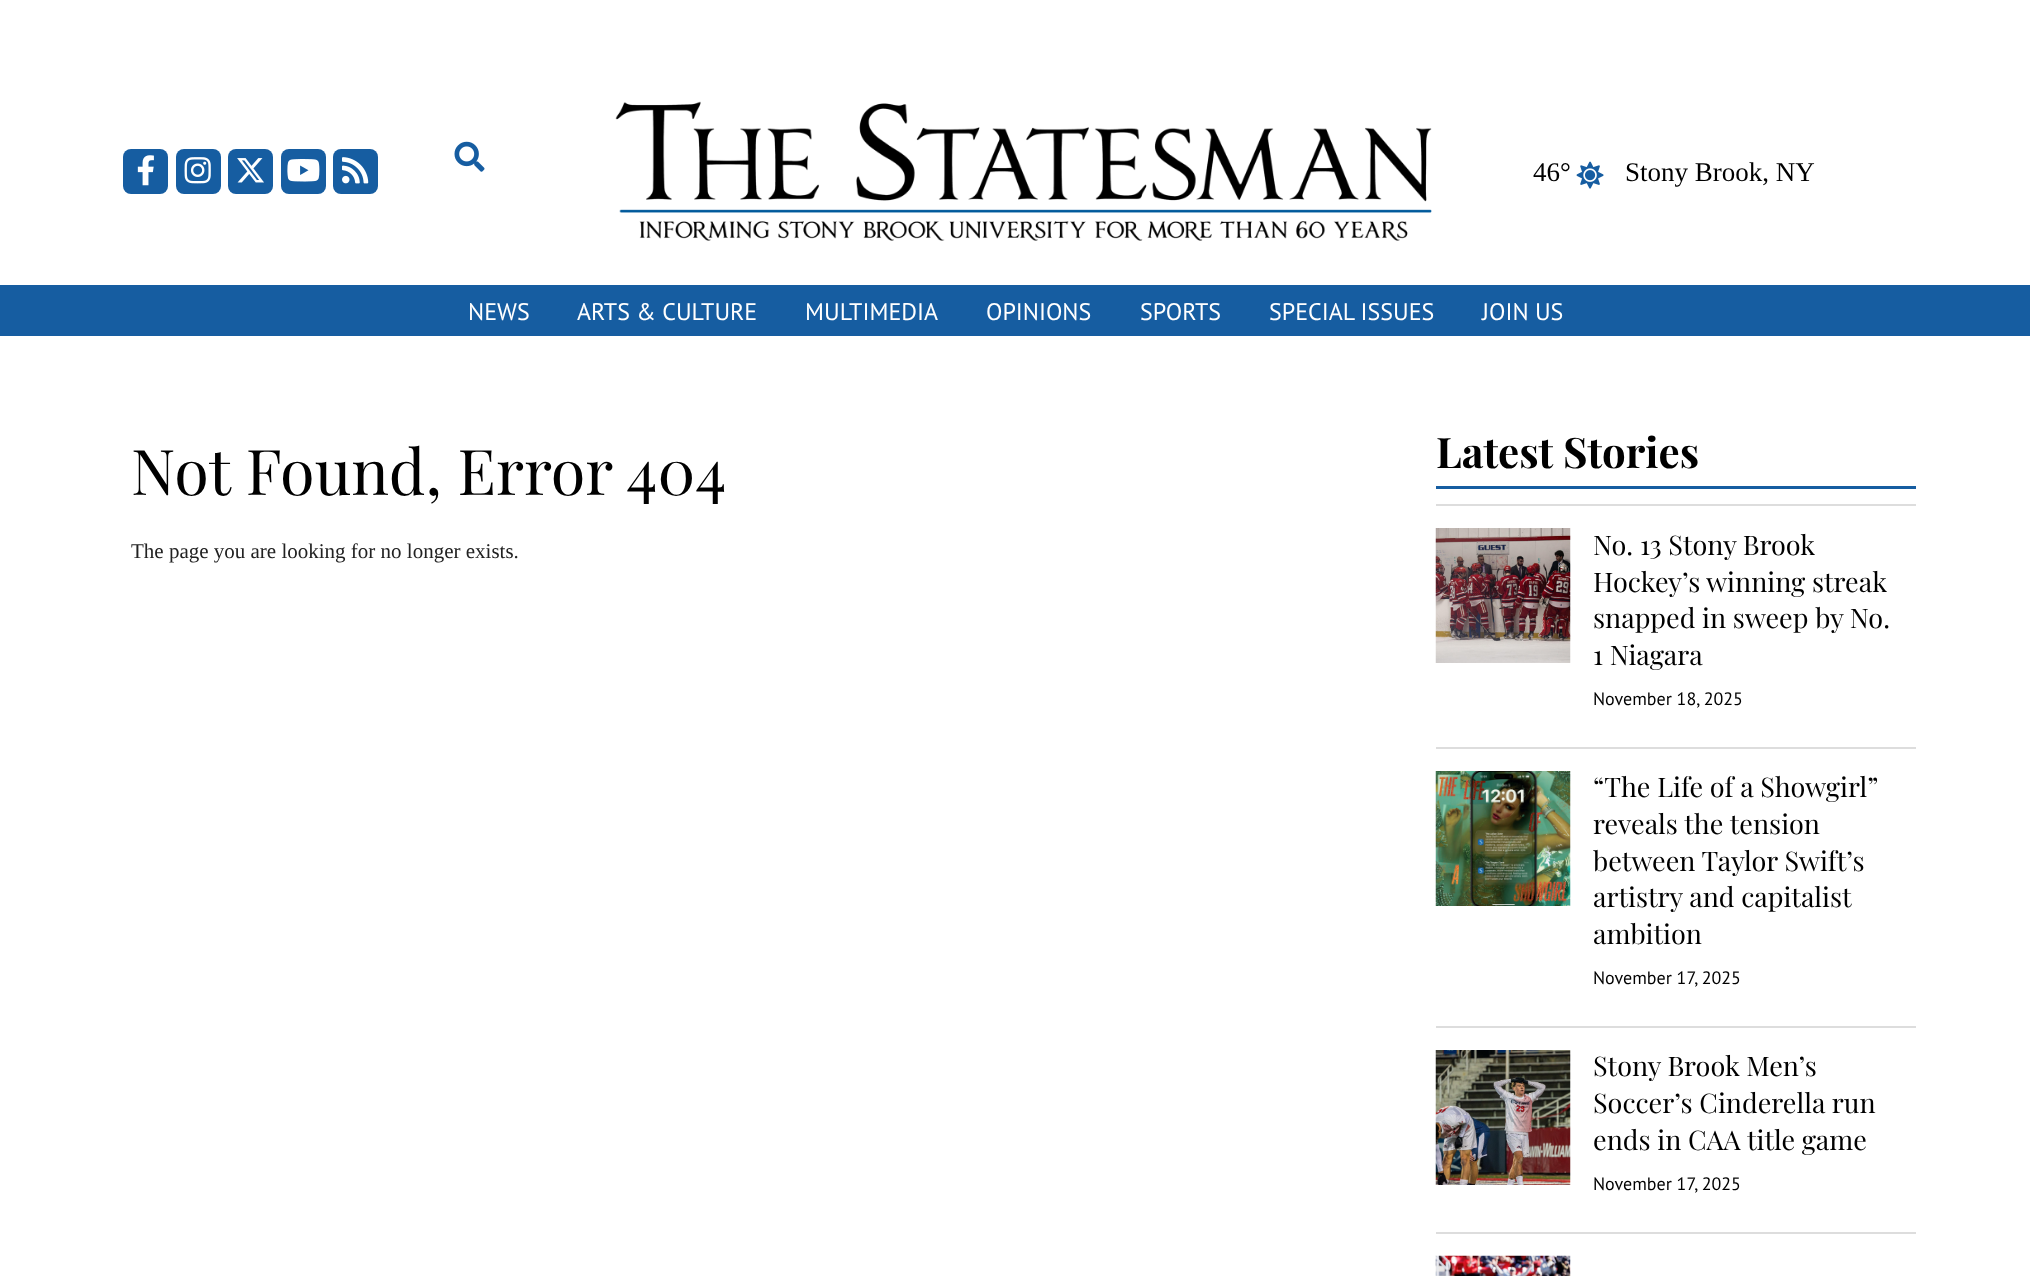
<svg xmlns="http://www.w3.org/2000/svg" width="2030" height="1276">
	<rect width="100%" height="100%" fill="#FFFFFF" />
	<rect x="123" y="149" width="45" height="45" rx="8" fill="#165DA1" />
	<image x="137" y="155" width="17" height="31" href="assets/img1.png" />
	<rect x="176" y="149" width="45" height="45" rx="8" fill="#165DA1" />
	<image x="184" y="157" width="27" height="27" href="assets/img2.png" />
	<rect x="228" y="149" width="45" height="45" rx="8" fill="#165DA1" />
	<image x="237" y="158" width="27" height="25" href="assets/img3.png" />
	<rect x="281" y="149" width="45" height="45" rx="8" fill="#165DA1" />
	<image x="287" y="159" width="33" height="23" href="assets/img4.png" />
	<rect x="333" y="149" width="45" height="45" rx="8" fill="#165DA1" />
	<image x="342" y="157" width="27" height="27" href="assets/img5.png" />
	<image x="454" y="141" width="31" height="31" href="assets/img6.png" />
	<image x="615" y="101" width="817" height="140" href="assets/img7.png" />
	<text x="1533" y="181" font-family="Liberation Serif" font-size="27" fill="#000000">46°</text>
	<image x="1576" y="161" width="28" height="28" href="assets/img8.png" />
	<text x="1625" y="181" font-family="Liberation Serif" font-size="27" fill="#000000">Stony Brook, NY</text>
	<rect x="0" y="285" width="2030" height="51" fill="#165DA1" />
	<g font-family="PT Sans" font-size="24" fill="#FFFFFF">
		<text x="468" y="320">NEWS</text>
		<text x="577" y="320">ARTS &amp; CULTURE</text>
		<text x="805" y="320">MULTIMEDIA</text>
		<text x="986" y="320">OPINIONS</text>
		<text x="1140" y="320">SPORTS</text>
		<text x="1269" y="320">SPECIAL ISSUES</text>
		<text x="1482" y="320">JOIN US</text>
	</g>
	<text x="131" y="495" font-family="Playfair Display" font-size="63" fill="#000000">Not Found, Error 404</text>
	<text x="131" y="558" font-family="Liberation Serif" font-size="21" fill="#222222">The page you are looking for no longer exists.</text>
	<rect x="1436" y="486" width="480" height="3" fill="#165DA1" />
	<text x="1436" y="468" font-family="Playfair Display" font-size="42" font-weight="700" fill="#000000">Latest Stories</text>
	<rect x="1436" y="504" width="480" height="2" fill="#DDDDDD" />
	<image x="1435" y="528" width="136" height="135" href="assets/img9.png" />
	<g font-family="Playfair Display" font-size="27" fill="#000000">
		<text x="1593" y="555">No. 13 Stony Brook</text>
		<text x="1593" y="592">Hockey’s winning streak</text>
		<text x="1593" y="628">snapped in sweep by No.</text>
		<text x="1593" y="665">1 Niagara</text>
	</g>
	<text x="1593" y="705" font-family="PT Sans" font-size="18" fill="#000000">November 18, 2025</text>
	<rect x="1436" y="747" width="480" height="2" fill="#DDDDDD" />
	<image x="1435" y="771" width="136" height="135" href="assets/img10.png" />
	<g font-family="Playfair Display" font-size="27" fill="#000000">
		<text x="1593" y="797">“The Life of a Showgirl”</text>
		<text x="1593" y="834">reveals the tension</text>
		<text x="1593" y="871">between Taylor Swift’s</text>
		<text x="1593" y="907">artistry and capitalist</text>
		<text x="1593" y="944">ambition</text>
	</g>
	<text x="1593" y="984" font-family="PT Sans" font-size="18" fill="#000000">November 17, 2025</text>
	<rect x="1436" y="1026" width="480" height="2" fill="#DDDDDD" />
	<image x="1435" y="1050" width="136" height="135" href="assets/img11.png" />
	<g font-family="Playfair Display" font-size="27" fill="#000000">
		<text x="1593" y="1076">Stony Brook Men’s</text>
		<text x="1593" y="1113">Soccer’s Cinderella run</text>
		<text x="1593" y="1150">ends in CAA title game</text>
	</g>
	<text x="1593" y="1190" font-family="PT Sans" font-size="18" fill="#000000">November 17, 2025</text>
	<rect x="1436" y="1232" width="480" height="2" fill="#DDDDDD" />
	<image x="1435" y="1255" width="136" height="21" href="assets/img12.png" />
</svg>
